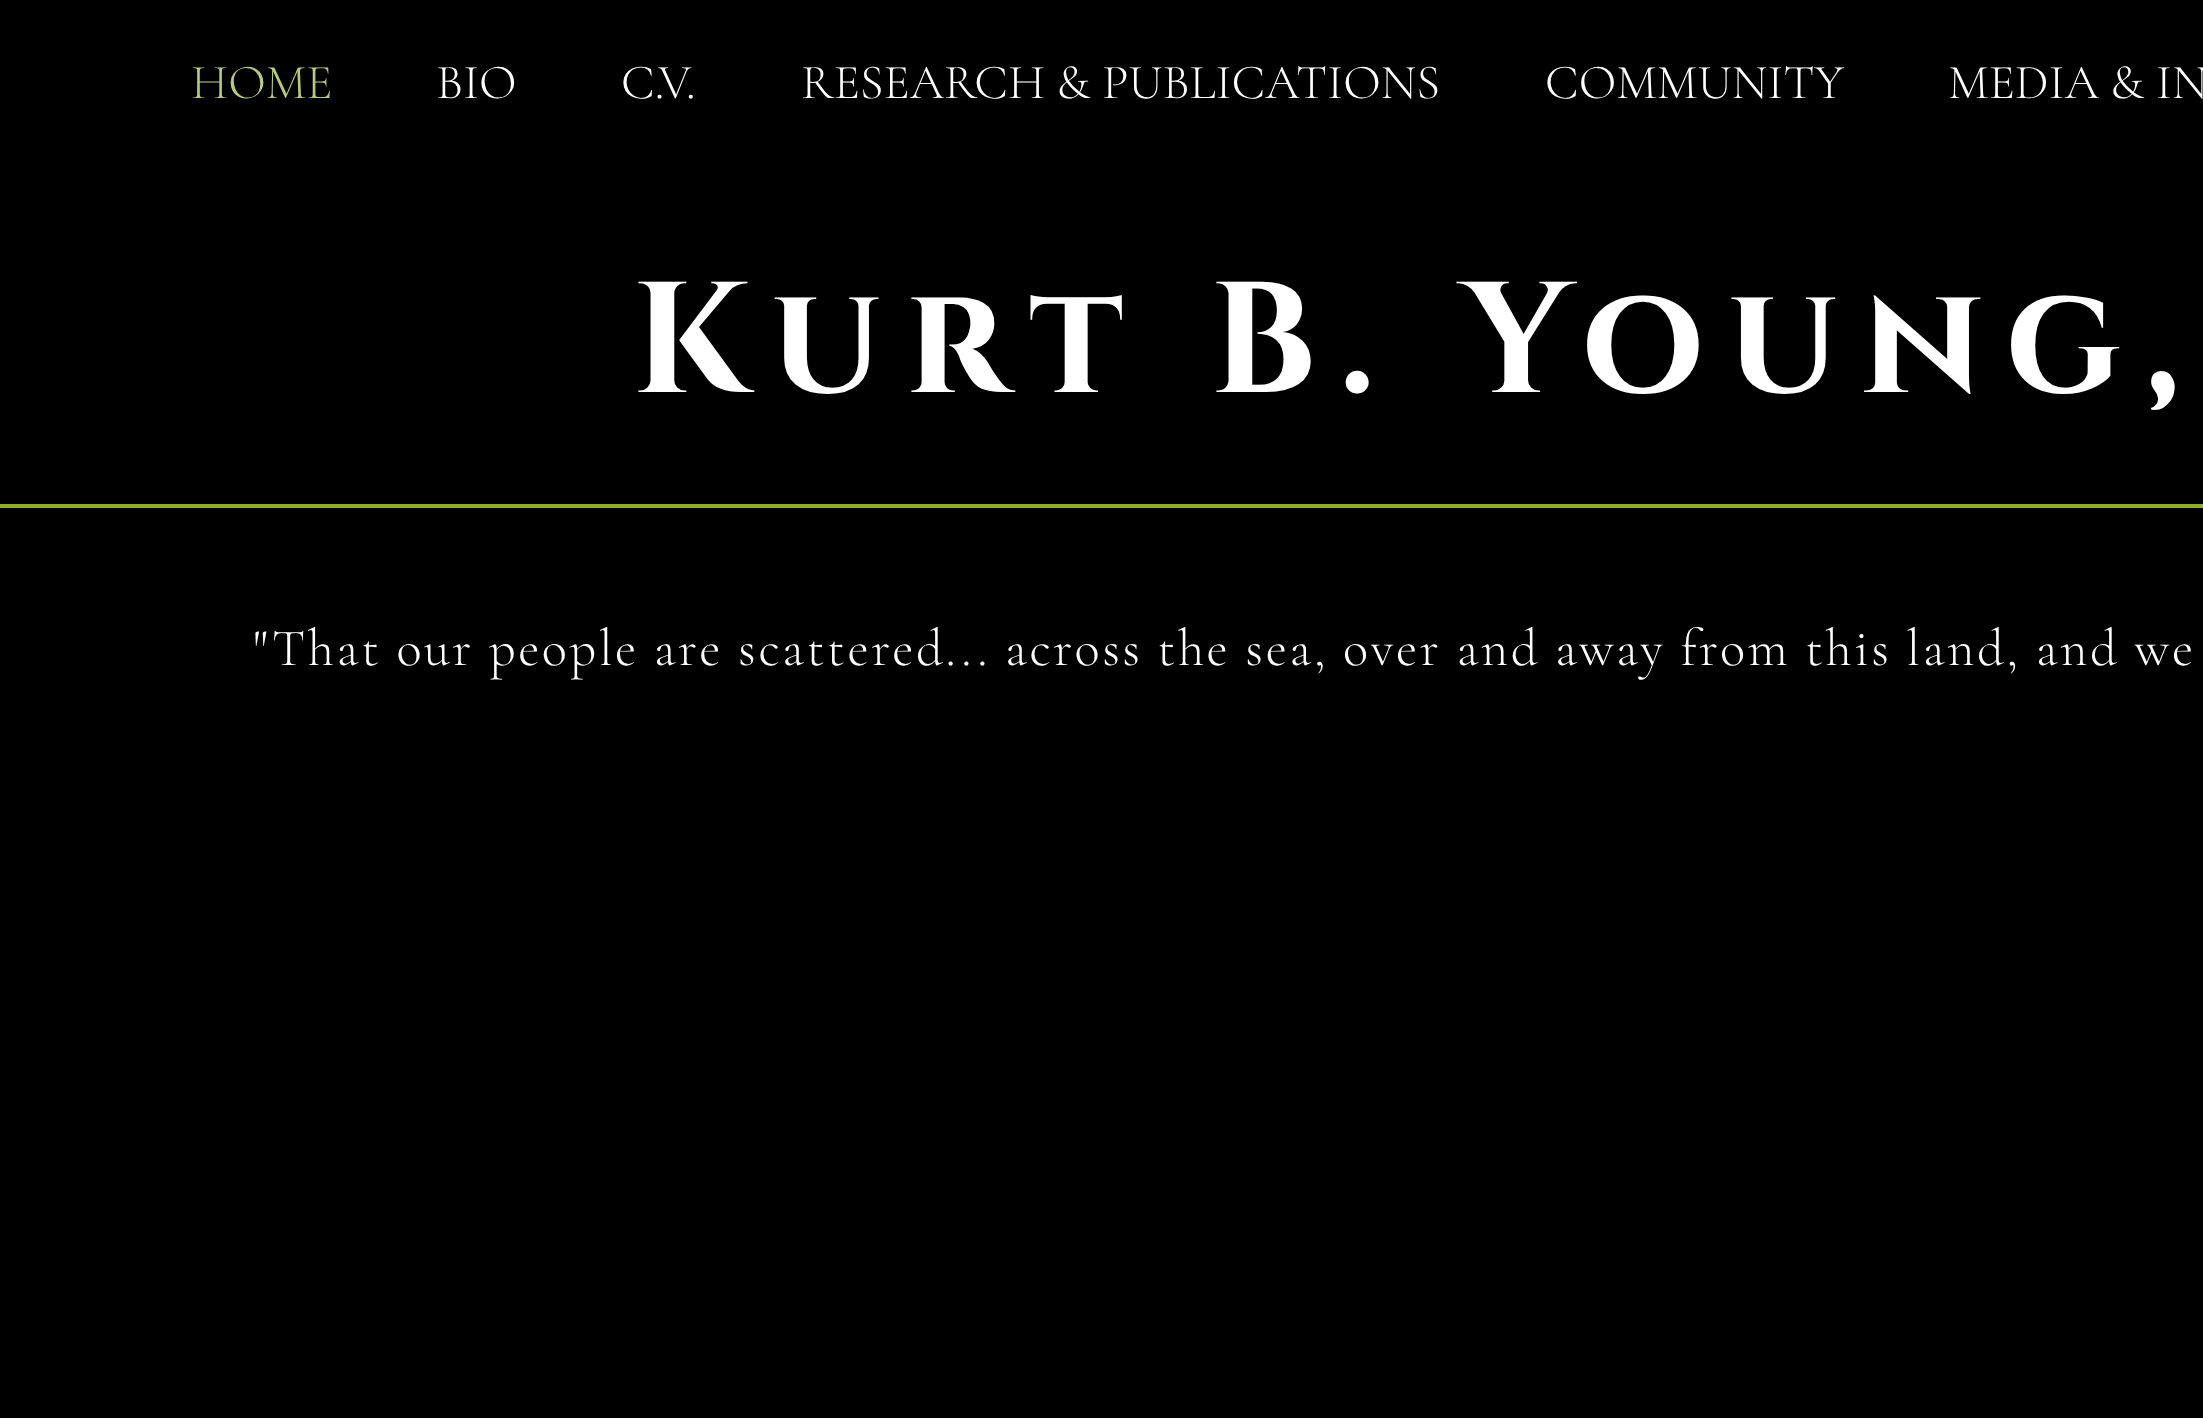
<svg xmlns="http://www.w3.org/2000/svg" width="2203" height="1418">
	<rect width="100%" height="100%" fill="#000000" />
	<text x="191" y="98" font-family="Cormorant Garamond" font-size="49" font-weight="300" fill="#B6CA7F">HOME</text>
	<g font-family="Cormorant Garamond" font-size="49" font-weight="300" fill="#FFFFFF">
		<text x="436" y="98">BIO</text>
		<text x="621" y="98">C.V.</text>
		<text x="801" y="98">RESEARCH &amp; PUBLICATIONS</text>
		<text x="1545" y="98">COMMUNITY</text>
		<text x="1948" y="98">MEDIA &amp; IN</text>
	</g>
	<text x="632" y="392" font-family="Cinzel" font-size="157.5" font-weight="700" letter-spacing="23.6" fill="#FFFFFF">Kurt B. Young,</text>
	<rect x="0" y="504" width="2203" height="4" fill="#8DAF2D" />
	<text x="253" y="665" font-family="Cormorant Garamond" font-size="52.5" font-weight="300" letter-spacing="2.62" fill="#FFFFFF">"That our people are scattered... across the sea, over and away from this land, and we</text>
</svg>
